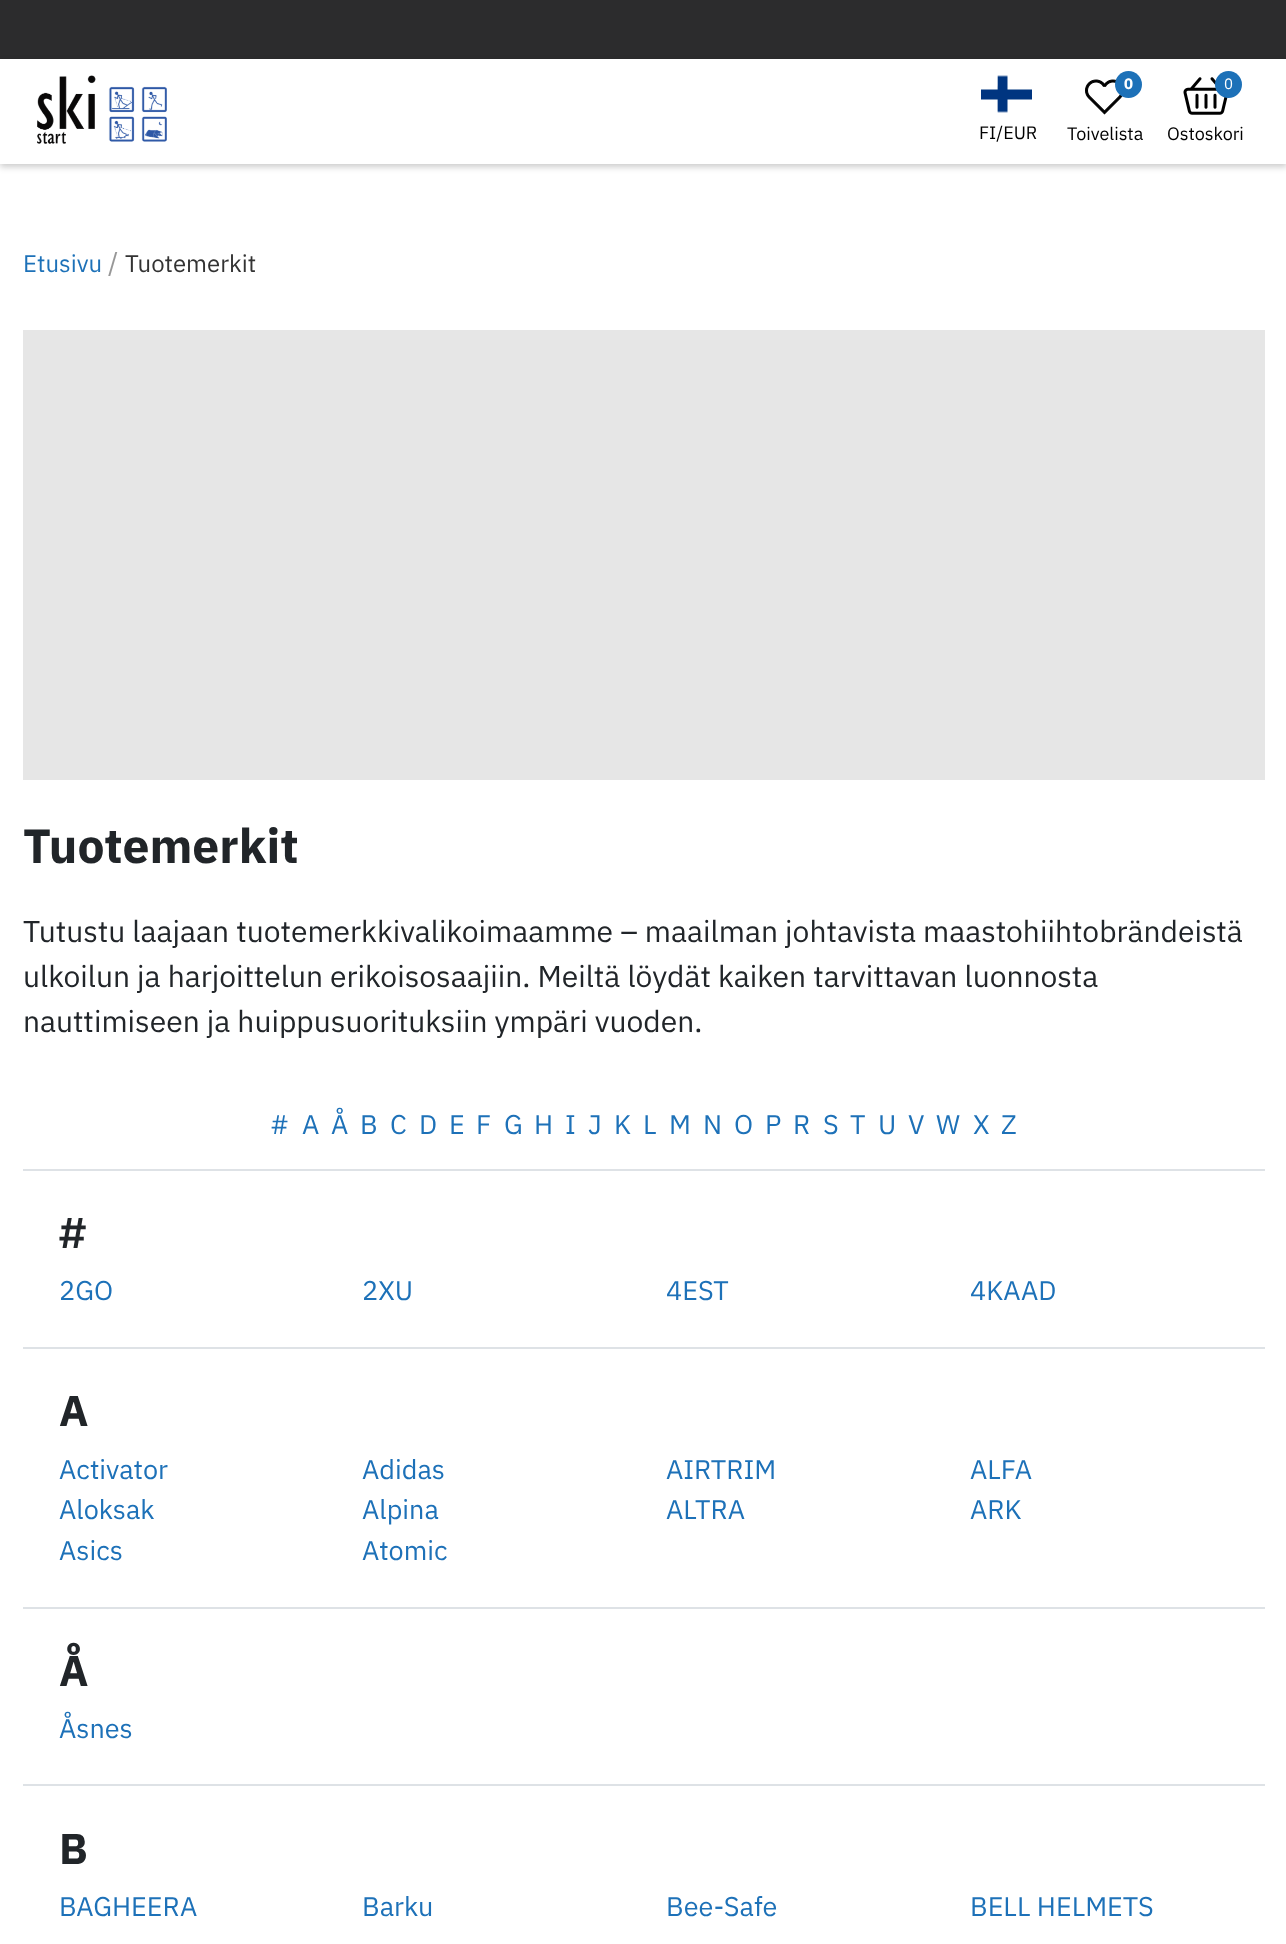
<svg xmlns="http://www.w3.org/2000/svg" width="1286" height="1944">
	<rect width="100%" height="100%" fill="#FFFFFF" />
	<rect x="0" y="0" width="1286" height="59" fill="#2C2C2D" />
	<rect x="0" y="62" width="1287" height="105" fill="#000000" fill-opacity="0.2" filter="blur(3px)" />
	<rect x="0" y="59" width="1286" height="105" fill="#FFFFFF" />
	<image x="37" y="75" width="130" height="69" href="assets/img1.png" />
	<image x="981" y="75" width="51" height="38" href="assets/img2.png" />
	<text x="979" y="139" font-family="IBM Plex Sans" font-size="18" fill="#000000">FI/EUR</text>
	<image x="1085" y="79" width="38" height="36" href="assets/img3.png" />
	<circle cx="1128.5" cy="84.5" r="13.5" fill="#1D71B8" />
	<text x="1124" y="89" font-family="IBM Plex Sans" font-size="15" font-weight="700" fill="#FFFFFF">0</text>
	<text x="1067" y="140" font-family="IBM Plex Sans" font-size="18" fill="#000000">Toivelista</text>
	<image x="1183" y="77" width="45" height="38" href="assets/img4.png" />
	<circle cx="1228.5" cy="84.5" r="13.5" fill="#1D71B8" />
	<text x="1224" y="89" font-family="IBM Plex Sans" font-size="15" fill="#FFFFFF">0</text>
	<text x="1167" y="140" font-family="IBM Plex Sans" font-size="18" fill="#000000">Ostoskori</text>
	<text x="23" y="272" font-family="IBM Plex Sans" font-size="24" fill="#1D71B8">Etusivu</text>
	<text x="108" y="272" font-family="IBM Plex Sans" font-size="27" fill="#979797">/</text>
	<text x="125" y="272" font-family="IBM Plex Sans" font-size="24" fill="#333333">Tuotemerkit</text>
	<rect x="23" y="330" width="1242" height="450" fill="#E6E6E6" />
	<text x="23" y="863" font-family="IBM Plex Sans" font-size="48" font-weight="700" fill="#212529">Tuotemerkit</text>
	<g font-family="IBM Plex Sans" font-size="30" fill="#212529">
		<text x="23" y="942">Tutustu laajaan tuotemerkkivalikoimaamme – maailman johtavista maastohiihtobrändeistä</text>
		<text x="23" y="987">ulkoilun ja harjoittelun erikoisosaajiin. Meiltä löydät kaiken tarvittavan luonnosta</text>
		<text x="23" y="1032">nauttimiseen ja huippusuorituksiin ympäri vuoden.</text>
	</g>
	<g font-family="IBM Plex Sans" font-size="27" fill="#1D71B8">
		<text x="270" y="1134">#</text>
		<text x="302" y="1134">A</text>
		<text x="331" y="1134">Å</text>
		<text x="360" y="1134">B</text>
		<text x="390" y="1134">C</text>
		<text x="419" y="1134">D</text>
		<text x="449" y="1134">E</text>
		<text x="476" y="1134">F</text>
		<text x="504" y="1134">G</text>
		<text x="534" y="1134">H</text>
		<text x="565" y="1134">I</text>
		<text x="588" y="1134">J</text>
		<text x="614" y="1134">K</text>
		<text x="643" y="1134">L</text>
		<text x="669" y="1134">M</text>
		<text x="703" y="1134">N</text>
		<text x="734" y="1134">O</text>
		<text x="765" y="1134">P</text>
		<text x="793" y="1134">R</text>
		<text x="823" y="1134">S</text>
		<text x="850" y="1134">T</text>
		<text x="878" y="1134">U</text>
		<text x="908" y="1134">V</text>
		<text x="936" y="1134">W</text>
		<text x="973" y="1134">X</text>
		<text x="1001" y="1134">Z</text>
	</g>
	<rect x="23" y="1169" width="1242" height="2" fill="#DEE2E6" />
	<text x="59" y="1248" font-family="IBM Plex Sans" font-size="43" font-weight="700" fill="#212529">#</text>
	<g font-family="IBM Plex Sans" font-size="27" fill="#1D71B8">
		<text x="59" y="1300">2GO</text>
		<text x="362" y="1300">2XU</text>
		<text x="666" y="1300">4EST</text>
		<text x="970" y="1300">4KAAD</text>
	</g>
	<rect x="23" y="1347" width="1242" height="2" fill="#DEE2E6" />
	<text x="59" y="1426" font-family="IBM Plex Sans" font-size="43" font-weight="700" fill="#212529">A</text>
	<g font-family="IBM Plex Sans" font-size="27" fill="#1D71B8">
		<text x="59" y="1479">Activator</text>
		<text x="362" y="1479">Adidas</text>
		<text x="666" y="1479">AIRTRIM</text>
		<text x="970" y="1479">ALFA</text>
		<text x="59" y="1519">Aloksak</text>
		<text x="362" y="1519">Alpina</text>
		<text x="666" y="1519">ALTRA</text>
		<text x="970" y="1519">ARK</text>
		<text x="59" y="1560">Asics</text>
		<text x="362" y="1560">Atomic</text>
	</g>
	<rect x="23" y="1607" width="1242" height="2" fill="#DEE2E6" />
	<text x="59" y="1686" font-family="IBM Plex Sans" font-size="43" font-weight="700" fill="#212529">Å</text>
	<text x="59" y="1738" font-family="IBM Plex Sans" font-size="27" fill="#1D71B8">Åsnes</text>
	<rect x="23" y="1784" width="1242" height="2" fill="#DEE2E6" />
	<text x="59" y="1864" font-family="IBM Plex Sans" font-size="43" font-weight="700" fill="#212529">B</text>
	<g font-family="IBM Plex Sans" font-size="27" fill="#1D71B8">
		<text x="59" y="1916">BAGHEERA</text>
		<text x="362" y="1916">Barku</text>
		<text x="666" y="1916">Bee-Safe</text>
		<text x="970" y="1916">BELL HELMETS</text>
	</g>
</svg>
